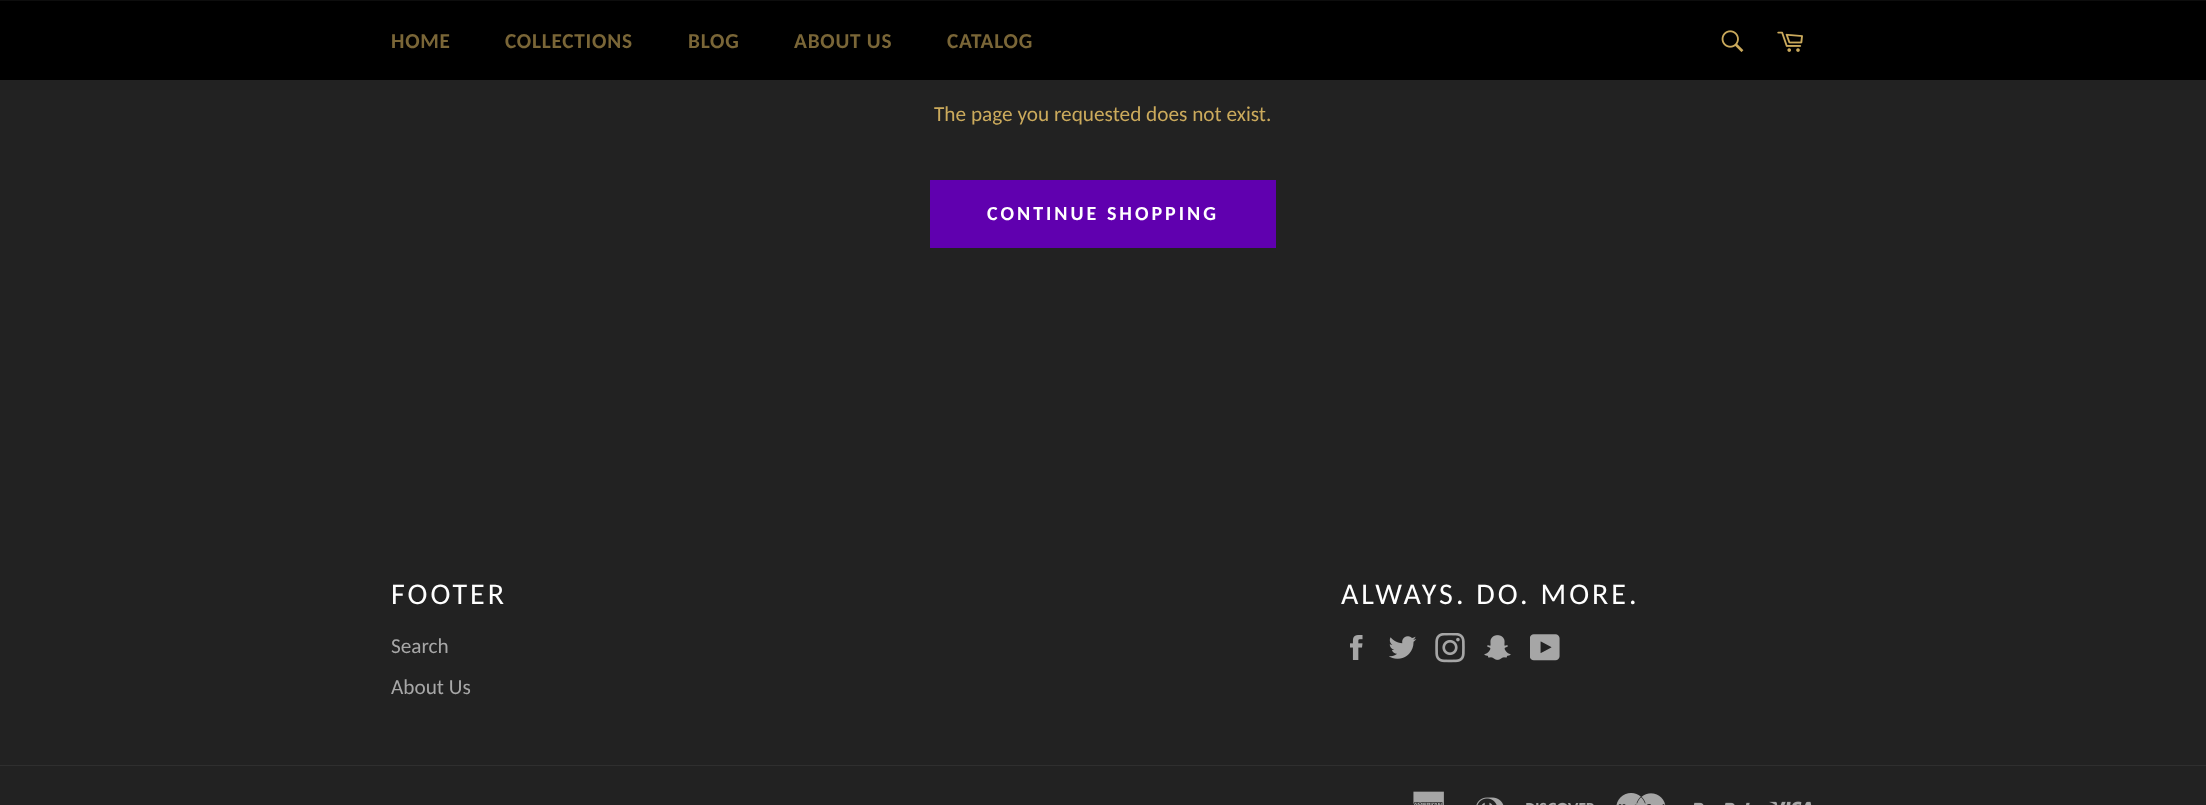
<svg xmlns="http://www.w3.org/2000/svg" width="2206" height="805">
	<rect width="100%" height="100%" fill="#222222" />
	<rect x="0" y="1" width="2206" height="79" fill="#000000" />
	<rect x="0" y="0" width="2206" height="1" fill="#0D0D0D" />
	<g font-family="Carlito" font-size="21.25" font-weight="700" letter-spacing="0.75" fill="#7A6637">
		<text x="391" y="48">HOME</text>
		<text x="505" y="48">COLLECTIONS</text>
		<text x="688" y="48">BLOG</text>
		<text x="794" y="48">ABOUT US</text>
		<text x="947" y="48">CATALOG</text>
	</g>
	<image x="1721" y="30" width="23" height="22" href="assets/img1.png" />
	<image x="1777" y="31" width="26" height="21" href="assets/img2.png" />
	<text x="934" y="121" font-family="Carlito" font-size="21.25" fill="#CBAA5C">The page you requested does not exist.</text>
	<rect x="930" y="180" width="346" height="68" fill="#6000AF" />
	<text x="987" y="220" font-family="Carlito" font-size="20" font-weight="700" letter-spacing="3" fill="#FFFFFF">CONTINUE SHOPPING</text>
	<text x="391" y="604" font-family="Carlito" font-size="30" letter-spacing="3" fill="#FFFFFF">FOOTER</text>
	<g font-family="Carlito" font-size="21.25" fill="#A7A7A7">
		<text x="391" y="653">Search</text>
		<text x="391" y="694">About Us</text>
	</g>
	<text x="1341" y="604" font-family="Carlito" font-size="30" letter-spacing="3" fill="#FFFFFF">ALWAYS. DO. MORE.</text>
	<image x="1350" y="635" width="13" height="25" href="assets/img3.png" />
	<image x="1389" y="636" width="28" height="23" href="assets/img4.png" />
	<image x="1435" y="633" width="30" height="30" href="assets/img5.png" />
	<image x="1484" y="635" width="27" height="25" href="assets/img6.png" />
	<image x="1530" y="634" width="30" height="27" href="assets/img7.png" />
	<rect x="0" y="765" width="2206" height="1" fill="#2F2F2F" />
	<image x="1413" y="791" width="31" height="14" href="assets/img8.png" />
	<image x="1476" y="797" width="28" height="8" href="assets/img9.png" />
	<image x="1526" y="802" width="68" height="3" href="assets/img10.png" />
	<image x="1616" y="793" width="50" height="12" href="assets/img11.png" />
	<image x="1694" y="802" width="56" height="3" href="assets/img12.png" />
	<image x="1769" y="801" width="43" height="4" href="assets/img13.png" />
</svg>
